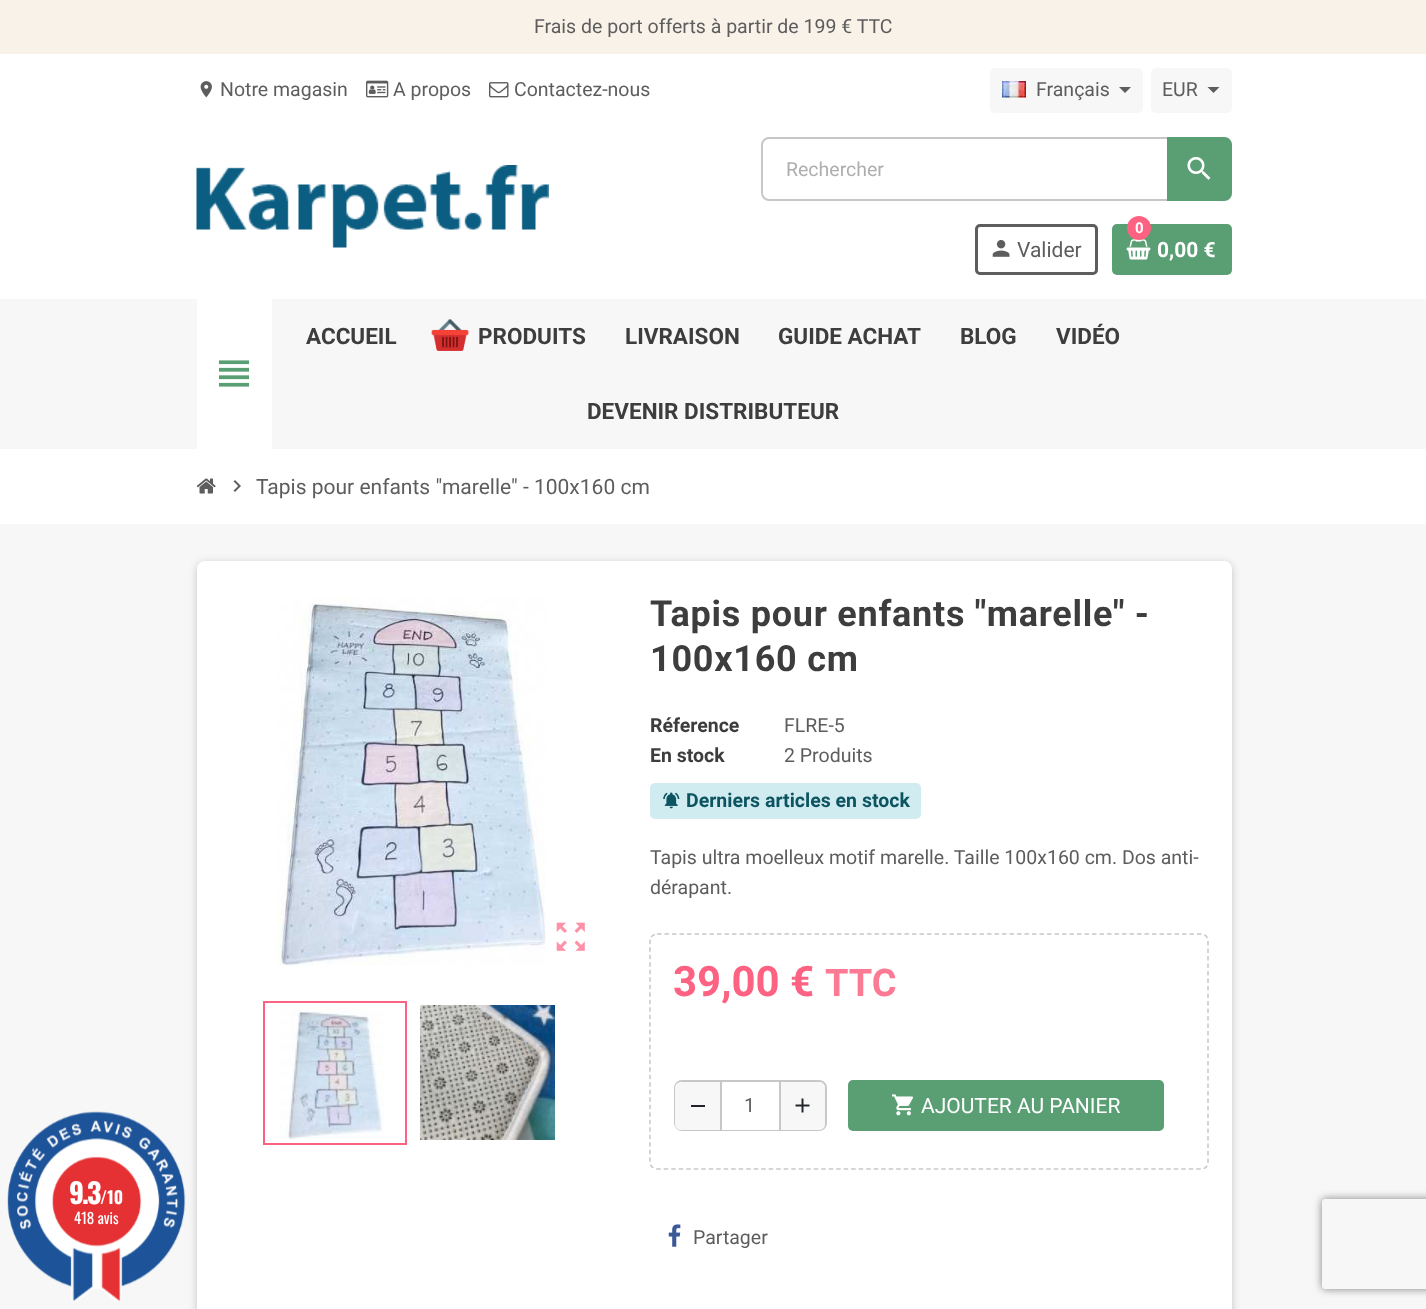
<svg xmlns="http://www.w3.org/2000/svg" width="1426" height="1309">
	<defs>
		<clipPath id="clip1"><path d="M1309 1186H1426V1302H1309ZM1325 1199H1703C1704.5 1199 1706 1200.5 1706 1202V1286C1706 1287.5 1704.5 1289 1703 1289H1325C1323.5 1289 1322 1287.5 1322 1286V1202C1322 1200.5 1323.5 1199 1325 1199Z" clip-rule="evenodd" /></clipPath>
	</defs>
	<rect width="100%" height="100%" fill="#FFFFFF" />
	<rect x="0" y="524" width="1426" height="785" fill="#F7F7F7" />
	<rect x="197" y="563" width="1035" height="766" rx="8" fill="#000000" fill-opacity="0.2" filter="blur(4px)" />
	<image x="7" y="1111" width="179" height="191" href="assets/img1.png" />
	<text x="69" y="1204" font-family="Oswald" font-size="28" font-weight="700" letter-spacing="-2" fill="#FFFFFF">9.3</text>
	<text x="100" y="1204" font-family="Oswald" font-size="17" font-weight="700" fill="#FFFFFF">/10</text>
	<text x="74" y="1224" font-family="Oswald" font-size="15" fill="#FFFFFF">418 avis</text>
	<rect x="0" y="0" width="1426" height="54" fill="#F9F2E8" />
	<text x="534" y="33" font-family="Roboto" font-size="19.5" fill="#5D5D5D">Frais de port offerts à partir de 199 € TTC</text>
	<image x="200" y="81" width="12" height="17" href="assets/img2.png" />
	<text x="220" y="96" font-family="Roboto" font-size="19.5" fill="#5D5D5D">Notre magasin</text>
	<image x="366" y="80" width="23" height="18" href="assets/img3.png" />
	<text x="393" y="96" font-family="Roboto" font-size="19.5" fill="#5D5D5D">A propos</text>
	<image x="489" y="82" width="20" height="16" href="assets/img4.png" />
	<text x="514" y="96" font-family="Roboto" font-size="19.5" fill="#5D5D5D">Contactez-nous</text>
	<rect x="990" y="68" width="153" height="45" rx="5" fill="#F7F7F7" />
	<image x="1002" y="81" width="24" height="17" href="assets/img5.png" />
	<text x="1036" y="96" font-family="Roboto" font-size="19.5" fill="#5D5D5D">Français</text>
	<path d="M1119 87H1131L1125 93Z" fill="#5D5D5D" />
	<rect x="1151" y="68" width="81" height="45" rx="5" fill="#F7F7F7" />
	<text x="1162" y="96" font-family="Roboto" font-size="19.5" fill="#5D5D5D">EUR</text>
	<path d="M1207.5 87H1219.5L1213.5 93Z" fill="#5D5D5D" />
	<image x="196" y="165" width="353" height="83" href="assets/img6.png" />
	<rect x="762" y="138" width="467" height="62" rx="7" fill="none" stroke="#C7C7C7" stroke-width="2" />
	<text x="786" y="176" font-family="Roboto" font-size="19.5" fill="#AEAEAE">Rechercher</text>
	<path d="M1167 137H1224C1228.5 137 1232 140.5 1232 145V193C1232 197.5 1228.5 201 1224 201H1167Z" fill="#5A9E74" />
	<image x="1187" y="157" width="24" height="23" href="assets/img7.png" />
	<rect x="976.5" y="225.5" width="120" height="48" rx="3.5" fill="none" stroke="#5D5D5D" stroke-width="3" />
	<image x="992" y="240" width="18" height="17" href="assets/img8.png" />
	<text x="1017" y="257" font-family="Roboto" font-size="21" fill="#5D5D5D">Valider</text>
	<rect x="1112" y="224" width="120" height="51" rx="5" fill="#5A9E74" />
	<image x="1126" y="239" width="25" height="21" href="assets/img9.png" />
	<circle cx="1139" cy="228" r="12" fill="#FD6282" />
	<text x="1135" y="233" font-family="Roboto" font-size="15" font-weight="700" fill="#FFFFFF">0</text>
	<text x="1157" y="257" font-family="Roboto" font-size="21" font-weight="700" fill="#FFFFFF">0,00 €</text>
	<rect x="0" y="299" width="1426" height="150" fill="#F7F7F7" />
	<rect x="197" y="299" width="75" height="150" fill="#FFFFFF" />
	<image x="218" y="360" width="32" height="27" href="assets/img10.png" />
	<text x="306" y="344" font-family="'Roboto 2'" font-size="22.5" font-weight="700" fill="#3D3D3D">ACCUEIL</text>
	<image x="431" y="319" width="38" height="32" href="assets/img11.png" />
	<g font-family="'Roboto 2'" font-size="22.5" font-weight="700" fill="#3D3D3D">
		<text x="478" y="344">PRODUITS</text>
		<text x="625" y="344">LIVRAISON</text>
		<text x="778" y="344">GUIDE ACHAT</text>
		<text x="960" y="344">BLOG</text>
		<text x="1056" y="344">VIDÉO</text>
		<text x="587" y="419">DEVENIR DISTRIBUTEUR</text>
	</g>
	<image x="196" y="478" width="20" height="16" href="assets/img12.png" />
	<image x="233" y="480" width="8" height="12" href="assets/img13.png" />
	<text x="256" y="494" font-family="Roboto" font-size="21" fill="#5D5D5D">Tapis pour enfants "marelle" - 100x160 cm</text>
	<rect x="197" y="561" width="1035" height="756" rx="8" fill="#FFFFFF" />
	<image x="276" y="597" width="271" height="369" href="assets/img14.png" />
	<rect x="545" y="924" width="2" height="20" fill="#FFFFFF" fill-opacity="0.7" />
	<image x="556" y="922" width="29" height="29" href="assets/img15.png" />
	<rect x="264" y="1002" width="142" height="142" fill="none" stroke="#FD6282" stroke-width="2" />
	<image x="280" y="1005" width="104" height="135" href="assets/img16.png" />
	<image x="420" y="1005" width="135" height="135" href="assets/img17.png" />
	<g font-family="'Roboto 2'" font-size="36" font-weight="700" letter-spacing="0.75" fill="#3D3D3D">
		<text x="650" y="626">Tapis pour enfants "marelle" -</text>
		<text x="650" y="671">100x160 cm</text>
	</g>
	<text x="650" y="732" font-family="Roboto" font-size="19.5" font-weight="700" fill="#3D3D3D">Réference</text>
	<text x="784" y="732" font-family="Roboto" font-size="19.5" fill="#5D5D5D">FLRE-5</text>
	<text x="650" y="762" font-family="Roboto" font-size="19.5" font-weight="700" fill="#3D3D3D">En stock</text>
	<text x="784" y="762" font-family="Roboto" font-size="19.5" fill="#5D5D5D">2 Produits</text>
	<rect x="650" y="783" width="271" height="36" rx="5" fill="#D1ECF1" />
	<image x="663" y="792" width="17" height="17" href="assets/img18.png" />
	<text x="686" y="807" font-family="Roboto" font-size="19.5" font-weight="700" fill="#0C5460">Derniers articles en stock</text>
	<g font-family="Roboto" font-size="19.5" fill="#5D5D5D">
		<text x="650" y="864">Tapis ultra moelleux motif marelle. Taille 100x160 cm. Dos anti-</text>
		<text x="650" y="894">dérapant.</text>
	</g>
	<path d="M657 934H1201.5C1205 934 1208 937 1208 940.5V1162.5C1208 1166 1205 1169 1201.5 1169H657C653.5 1169 650 1166 650 1162.5V940.5C650 937 653.5 934 657 934Z" fill="none" stroke="#C7C7C7" stroke-width="1.5" stroke-dasharray="4.5 3" />
	<text x="673" y="996" font-family="Roboto" font-size="42" font-weight="700" fill="#FD6282">39,00 €</text>
	<text x="825" y="996" font-family="Roboto" font-size="38" font-weight="700" fill="#FD7A95">TTC</text>
	<rect x="675" y="1081" width="151" height="49" rx="7" fill="none" stroke="#C7C7C7" stroke-width="2" />
	<path d="M681 1082H720V1130H681C677.5 1130 675 1127.5 675 1124V1088C675 1084.5 677.5 1082 681 1082Z" fill="#F7F7F7" />
	<rect x="691" y="1105" width="14" height="2" fill="#212529" />
	<rect x="722" y="1129" width="57" height="1" fill="#FFFFFF" />
	<path d="M780 1082H819C822.5 1082 825 1084.5 825 1088V1124C825 1127.5 822.5 1130 819 1130H780Z" fill="#F7F7F7" />
	<rect x="779" y="1082" width="2" height="48" fill="#C7C7C7" />
	<rect x="720" y="1082" width="2" height="48" fill="#C7C7C7" />
	<text x="744" y="1112" font-family="Roboto" font-size="19.5" fill="#5D5D5D">1</text>
	<image x="795" y="1098" width="15" height="15" href="assets/img19.png" />
	<rect x="848" y="1080" width="316" height="51" rx="5" fill="#5A9E74" />
	<image x="892" y="1094" width="21" height="22" href="assets/img20.png" />
	<text x="921" y="1113" font-family="Roboto" font-size="21" fill="#FFFFFF">AJOUTER AU PANIER</text>
	<image x="668" y="1224" width="13" height="23" href="assets/img21.png" />
	<text x="693" y="1244" font-family="Roboto" font-size="19.5" fill="#5D5D5D">Partager</text>
	<g clip-path="url(#clip1)">
		<rect x="1322" y="1199" width="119" height="90" rx="3" fill="#808080" filter="blur(4px)" />
	</g>
</svg>
